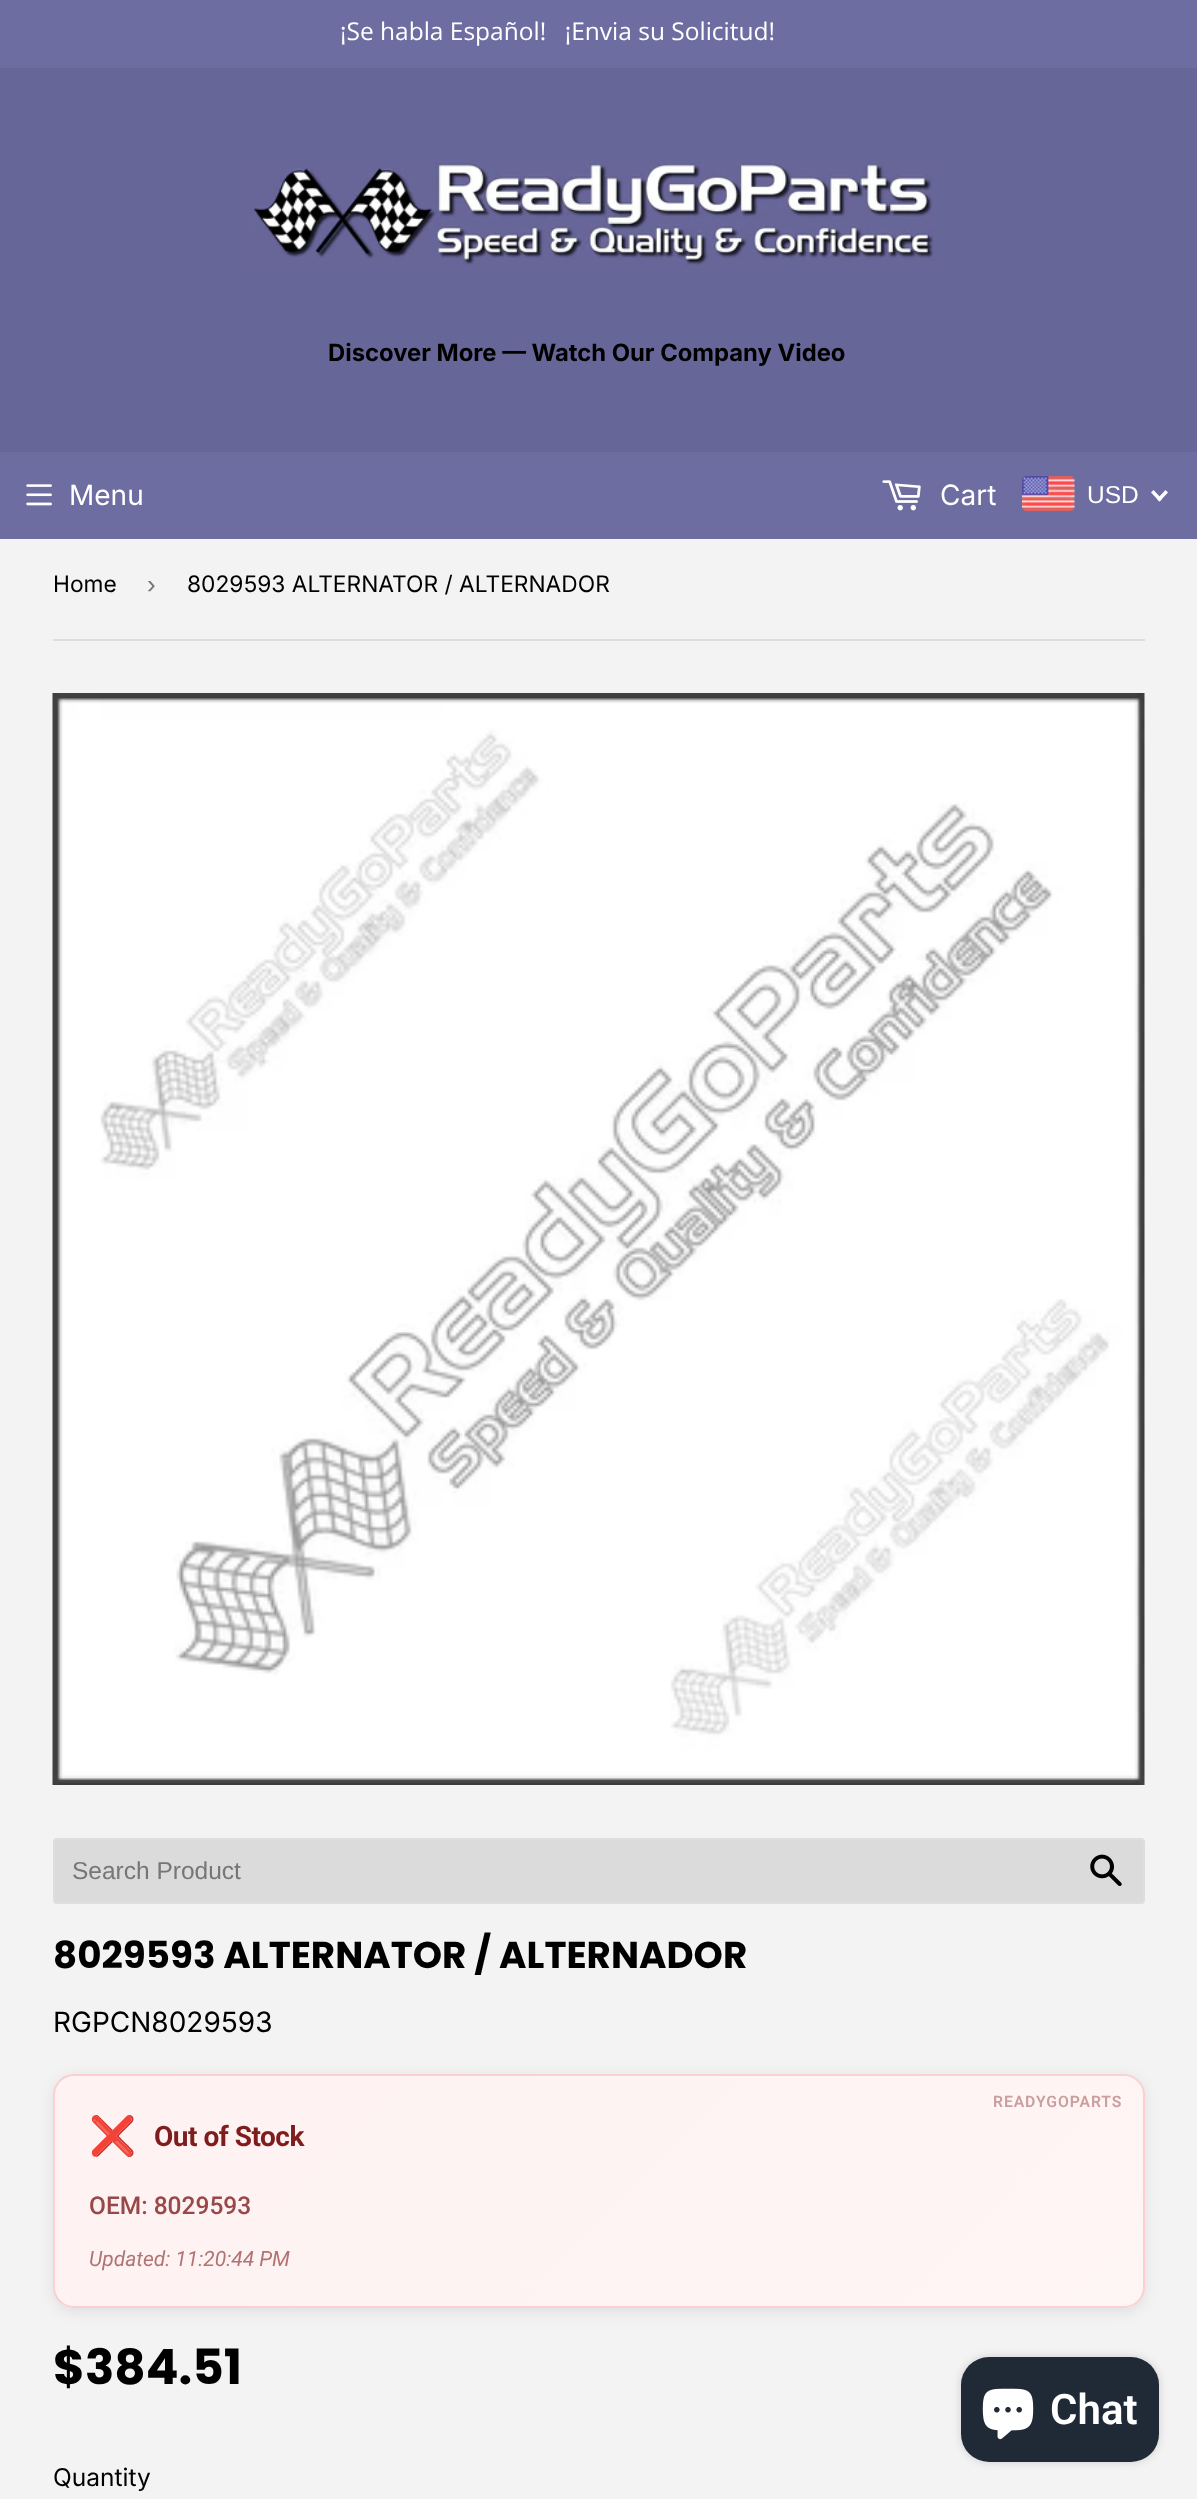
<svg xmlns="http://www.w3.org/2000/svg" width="1197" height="2499">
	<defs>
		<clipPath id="clip1"><rect x="53" y="2074" width="1092" height="234" rx="21" /></clipPath>
		<linearGradient id="g1" gradientUnits="userSpaceOnUse" x1="269" y1="1630" x2="928" y2="2290"><stop offset="0" stop-color="#FEF2F2" /><stop offset="1" stop-color="#FEF5F5" /></linearGradient>
		<linearGradient id="g2" gradientUnits="userSpaceOnUse" x1="-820" y1="1861" x2="-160" y2="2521"><stop offset="0" stop-color="#FEF2F2" /><stop offset="1" stop-color="#FEF5F5" /></linearGradient>
		<linearGradient id="g3" gradientUnits="userSpaceOnUse" x1="269" y1="1861" x2="928" y2="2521"><stop offset="0" stop-color="#FEF2F2" /><stop offset="1" stop-color="#FEF5F5" /></linearGradient>
		<linearGradient id="g4" gradientUnits="userSpaceOnUse" x1="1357" y1="1861" x2="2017" y2="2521"><stop offset="0" stop-color="#FEF2F2" /><stop offset="1" stop-color="#FEF5F5" /></linearGradient>
		<linearGradient id="g5" gradientUnits="userSpaceOnUse" x1="269" y1="2092" x2="928" y2="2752"><stop offset="0" stop-color="#FEF2F2" /><stop offset="1" stop-color="#FEF5F5" /></linearGradient>
	</defs>
	<rect width="100%" height="100%" fill="#F3F3F3" />
	<rect x="0" y="0" width="1197" height="68" fill="#6E6DA2" />
	<text x="340" y="40" font-family="Open Sans" font-size="24.5" fill="#FFFFFF">¡Se habla Español!  ¡Envia su Solicitud!</text>
	<rect x="0" y="68" width="1197" height="384" fill="#676699" />
	<image x="251" y="159" width="683" height="108" href="assets/img1.png" />
	<text x="328" y="361" font-family="Inter" font-size="23.8" font-weight="700" fill="#000000">Discover More — Watch Our Company Video</text>
	<rect x="0" y="452" width="1197" height="87" fill="#6E6DA2" />
	<image x="26" y="484" width="26" height="22" href="assets/img2.png" />
	<text x="69" y="505" font-family="Inter" font-size="28" fill="#FFFFFF">Menu</text>
	<image x="882" y="480" width="39" height="31" href="assets/img3.png" />
	<text x="940" y="505" font-family="Inter" font-size="28" fill="#FFFFFF">Cart</text>
	<image x="1022" y="476" width="53" height="35" href="assets/img4.png" />
	<text x="1087" y="503" font-family="Liberation Sans" font-size="24.5" fill="#FFFFFF">USD</text>
	<path d="M1165.5 490L1168 492.5L1159.5 501.5L1157 499Z" fill="#FFFFFF" />
	<path d="M1153.5 490L1162 499L1159.5 501.5L1151 492.5Z" fill="#FFFFFF" />
	<rect x="53" y="639" width="1092" height="2" fill="#DEDEDE" />
	<text x="53" y="592" font-family="Inter" font-size="22.75" fill="#000000">Home</text>
	<text x="147" y="593" font-family="Liberation Sans" font-size="26" fill="#767676">›</text>
	<text x="187" y="592" font-family="Inter" font-size="22.75" fill="#000000">8029593 ALTERNATOR / ALTERNADOR</text>
	<image x="52" y="693" width="1093" height="1092" href="assets/img5.png" />
	<rect x="54" y="1839" width="1090" height="64" rx="3" fill="#DBDBDB" stroke="#DEDEDE" stroke-width="2" />
	<text x="72" y="1879" font-family="Liberation Sans" font-size="24.5" fill="#767676">Search Product</text>
	<image x="1090" y="1854" width="32" height="32" href="assets/img6.png" />
	<text x="53" y="1968" font-family="Poppins" font-size="37.3" font-weight="700" fill="#000000">8029593 ALTERNATOR / ALTERNADOR</text>
	<text x="53" y="2032" font-family="Inter" font-size="28" fill="#000000">RGPCN8029593</text>
	<rect x="53" y="2077" width="1092" height="235" rx="21" fill="#000000" fill-opacity="0.08" filter="blur(7px)" />
	<g clip-path="url(#clip1)">
		<rect x="65" y="2074" width="1068" height="2" fill="url(#g1)" />
		<rect x="53" y="2088" width="1" height="206" fill="url(#g2)" />
		<rect x="54" y="2076" width="1089" height="231" fill="url(#g3)" />
		<rect x="1143" y="2086" width="2" height="210" fill="url(#g4)" />
		<rect x="67" y="2307" width="1064" height="1" fill="url(#g5)" />
	</g>
	<rect x="54" y="2075" width="1090" height="232" rx="20" fill="none" stroke="#EF4444" stroke-opacity="0.2" stroke-width="2" />
	<text x="993" y="2107" font-family="Roboto" font-size="15.75" font-weight="600" letter-spacing="0.9" fill="#CB9E9E">READYGOPARTS</text>
	<text x="89" y="2149" font-family="Noto Color Emoji" font-size="38" font-weight="700" letter-spacing="-0.5" fill="#7F1D1D">❌</text>
	<text x="154" y="2146" font-family="Roboto" font-size="28" font-weight="700" letter-spacing="-0.5" fill="#7F1D1D">Out of Stock</text>
	<text x="89" y="2214" font-family="Roboto" font-size="24.5" font-weight="500" fill="#984848">OEM: 8029593</text>
	<text x="89" y="2266" font-family="Roboto" font-size="21" font-style="italic" fill="#B27373">Updated: 11:20:44 PM</text>
	<text x="53" y="2384" font-family="Poppins" font-size="48.5" font-weight="700" fill="#000000">$384.51</text>
	<text x="53" y="2486" font-family="Inter" font-size="24.5" fill="#000000">Quantity</text>
	<rect x="961" y="2357" width="198" height="105" rx="28" fill="#000000" fill-opacity="0.15" filter="blur(4.5px)" />
	<rect x="961" y="2357" width="198" height="105" rx="28" fill="#202A36" />
	<image x="982" y="2388" width="52" height="52" href="assets/img7.png" />
	<text x="1050" y="2424" font-family="Roboto" font-size="42" font-weight="600" fill="#FFFFFF">Chat</text>
</svg>
